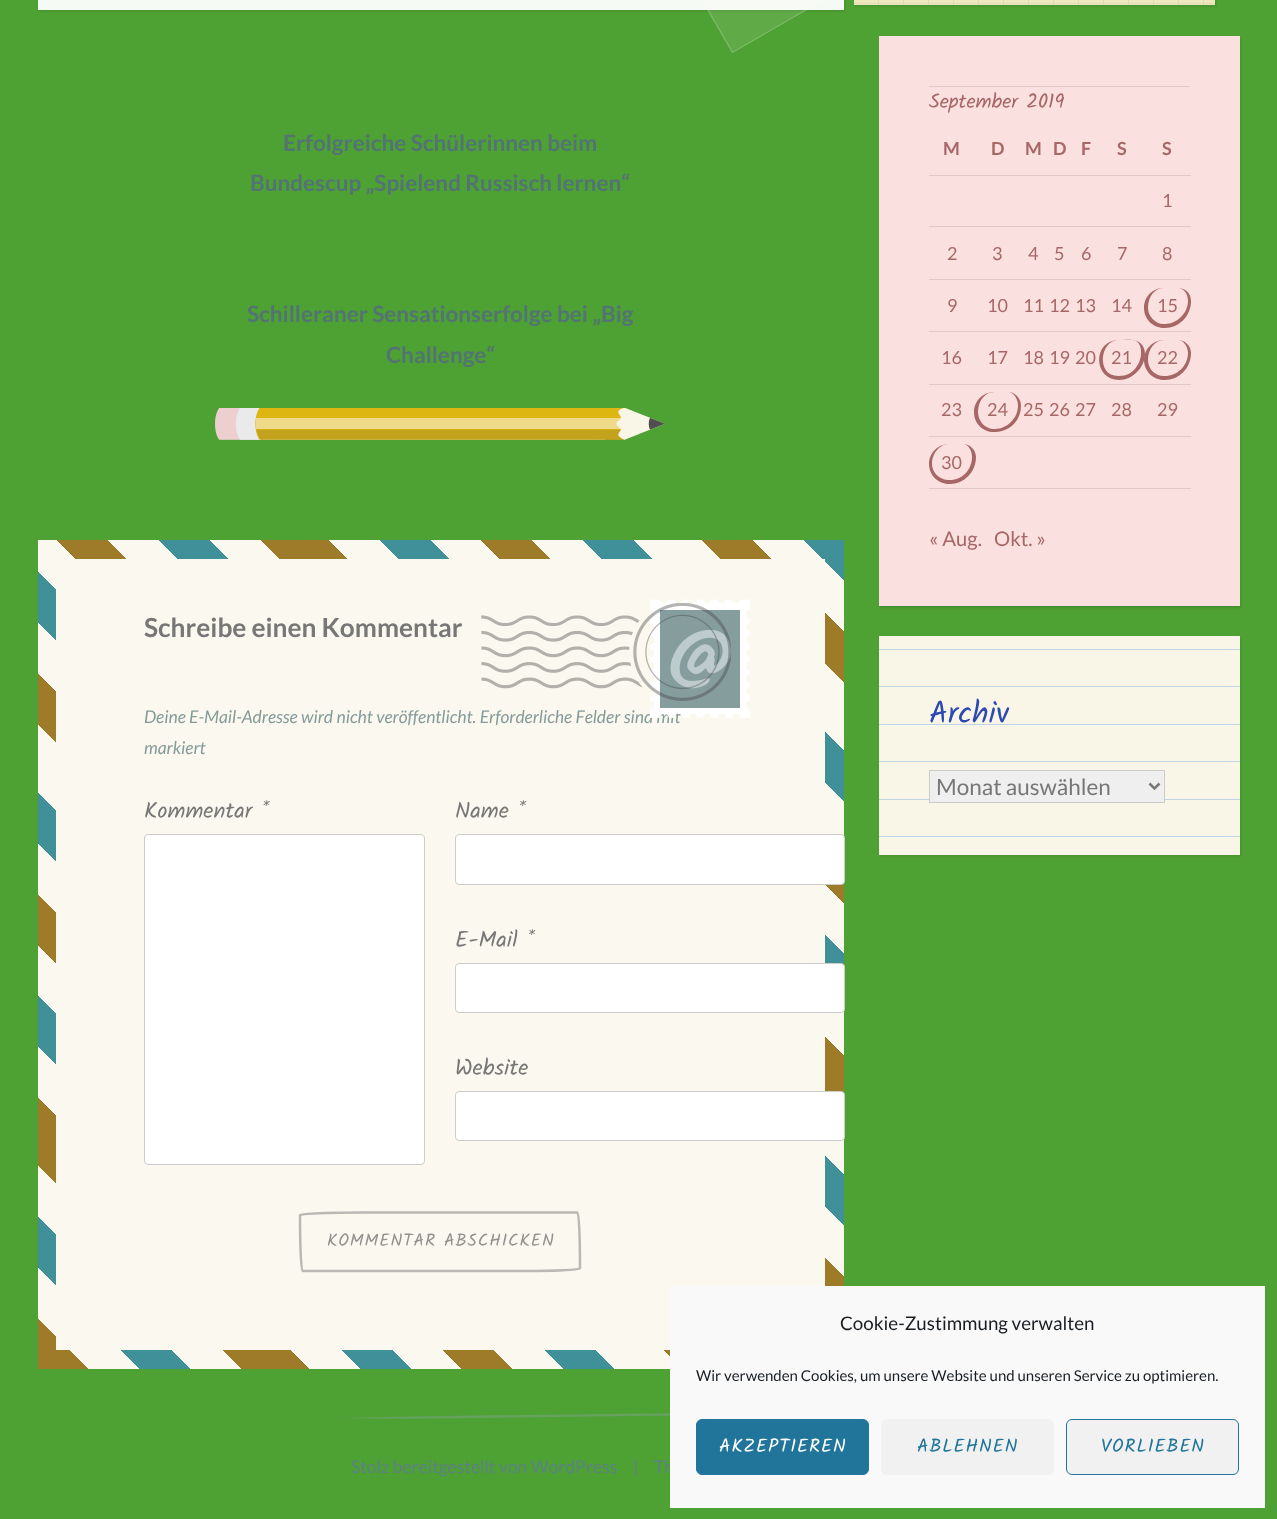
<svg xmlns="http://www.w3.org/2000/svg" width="1277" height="1519">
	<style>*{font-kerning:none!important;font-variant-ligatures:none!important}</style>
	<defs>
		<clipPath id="clip1"><path d="M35 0H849V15H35ZM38-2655H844V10H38Z" clip-rule="evenodd" /></clipPath>
		<linearGradient id="g1" gradientUnits="userSpaceOnUse" x1="32" y1="1363" x2="880" y2="515"><stop offset="0" stop-color="#9D7B28" /><stop offset="0.03" stop-color="#9D7B28" /><stop offset="0.03" stop-color="#FBF9EF" /><stop offset="0.06" stop-color="#FBF9EF" /><stop offset="0.06" stop-color="#409099" /><stop offset="0.09" stop-color="#409099" /><stop offset="0.09" stop-color="#FBF9EF" /><stop offset="0.12" stop-color="#FBF9EF" /><stop offset="0.12" stop-color="#9D7B28" /><stop offset="0.16" stop-color="#9D7B28" /><stop offset="0.16" stop-color="#FBF9EF" /><stop offset="0.19" stop-color="#FBF9EF" /><stop offset="0.19" stop-color="#409099" /><stop offset="0.22" stop-color="#409099" /><stop offset="0.22" stop-color="#FBF9EF" /><stop offset="0.25" stop-color="#FBF9EF" /><stop offset="0.25" stop-color="#9D7B28" /><stop offset="0.28" stop-color="#9D7B28" /><stop offset="0.28" stop-color="#FBF9EF" /><stop offset="0.31" stop-color="#FBF9EF" /><stop offset="0.31" stop-color="#409099" /><stop offset="0.34" stop-color="#409099" /><stop offset="0.34" stop-color="#FBF9EF" /><stop offset="0.38" stop-color="#FBF9EF" /><stop offset="0.38" stop-color="#9D7B28" /><stop offset="0.41" stop-color="#9D7B28" /><stop offset="0.41" stop-color="#FBF9EF" /><stop offset="0.44" stop-color="#FBF9EF" /><stop offset="0.44" stop-color="#409099" /><stop offset="0.47" stop-color="#409099" /><stop offset="0.47" stop-color="#FBF9EF" /><stop offset="0.5" stop-color="#FBF9EF" /><stop offset="0.5" stop-color="#9D7B28" /><stop offset="0.53" stop-color="#9D7B28" /><stop offset="0.53" stop-color="#FBF9EF" /><stop offset="0.56" stop-color="#FBF9EF" /><stop offset="0.56" stop-color="#409099" /><stop offset="0.59" stop-color="#409099" /><stop offset="0.59" stop-color="#FBF9EF" /><stop offset="0.62" stop-color="#FBF9EF" /><stop offset="0.62" stop-color="#9D7B28" /><stop offset="0.66" stop-color="#9D7B28" /><stop offset="0.66" stop-color="#FBF9EF" /><stop offset="0.69" stop-color="#FBF9EF" /><stop offset="0.69" stop-color="#409099" /><stop offset="0.72" stop-color="#409099" /><stop offset="0.72" stop-color="#FBF9EF" /><stop offset="0.75" stop-color="#FBF9EF" /><stop offset="0.75" stop-color="#9D7B28" /><stop offset="0.78" stop-color="#9D7B28" /><stop offset="0.78" stop-color="#FBF9EF" /><stop offset="0.81" stop-color="#FBF9EF" /><stop offset="0.81" stop-color="#409099" /><stop offset="0.84" stop-color="#409099" /><stop offset="0.84" stop-color="#FBF9EF" /><stop offset="0.88" stop-color="#FBF9EF" /><stop offset="0.88" stop-color="#9D7B28" /><stop offset="0.91" stop-color="#9D7B28" /><stop offset="0.91" stop-color="#FBF9EF" /><stop offset="0.94" stop-color="#FBF9EF" /><stop offset="0.94" stop-color="#409099" /><stop offset="0.97" stop-color="#409099" /><stop offset="0.97" stop-color="#FBF9EF" /><stop offset="1" stop-color="#FBF9EF" /></linearGradient>
	</defs>
	<rect width="100%" height="100%" fill="#4EA133" />
	<g clip-path="url(#clip1)">
		<rect x="39" y="-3" width="806" height="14" fill="#000000" fill-opacity="0.1" filter="blur(1px)" />
	</g>
	<rect x="38" y="0" width="806" height="10" fill="#FFFFFF" fill-opacity="0.95" />
	<path d="M704 5L867-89L895-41L732 53Z" fill="#FFFFFF" fill-opacity="0.1" />
	<path d="M705 4.5L866.5-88.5L894-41L732.5 52.5Z" fill="none" stroke="#FFFFFF" stroke-opacity="0.2" stroke-width="1.2" />
	<g font-family="Lato" font-size="22.5" font-weight="700" fill="#537375">
		<text x="283" y="151">Erfolgreiche Schülerinnen beim</text>
		<text x="250" y="191">Bundescup „Spielend Russisch lernen“</text>
		<text x="247" y="322">Schilleraner Sensationserfolge bei „Big</text>
		<text x="386" y="363">Challenge“</text>
	</g>
	<image x="215" y="408" width="450" height="32" href="assets/img1.png" />
	<rect x="38" y="540" width="806" height="829" fill="url(#g1)" />
	<rect x="56" y="559" width="769" height="791" fill="#FBF9EF" />
	<text x="144" y="723" font-family="Lato" font-size="17.5" font-style="italic" fill="#859B9A">Deine E-Mail-Adresse wird nicht veröffentlicht. Erforderliche Felder sind mit</text>
	<image x="650" y="599" width="100" height="119" href="assets/img2.png" />
	<image x="481" y="603" width="250" height="98" href="assets/img3.png" />
	<text x="144" y="637" font-family="Lato" font-size="26.25" font-weight="700" fill="#777777">Schreibe einen Kommentar</text>
	<text x="144" y="754" font-family="Lato" font-size="17.5" font-style="italic" fill="#859B9A">markiert</text>
	<text x="144" y="818" font-family="Kalam" font-size="22.5" fill="#777777">Kommentar *</text>
	<rect x="144.5" y="834.5" width="280" height="330" rx="3.5" fill="#FFFFFF" stroke="#CCCCCC" />
	<text x="455" y="818" font-family="Kalam" font-size="22.5" fill="#777777">Name *</text>
	<rect x="455.5" y="834.5" width="389" height="50" rx="3.5" fill="#FFFFFF" stroke="#CCCCCC" />
	<text x="455" y="947" font-family="Kalam" font-size="22.5" fill="#777777">E-Mail *</text>
	<rect x="455.5" y="963.5" width="389" height="49" rx="3.5" fill="#FFFFFF" stroke="#CCCCCC" />
	<text x="455" y="1075" font-family="Kalam" font-size="22.5" fill="#777777">Website</text>
	<rect x="455.5" y="1091.5" width="389" height="49" rx="3.5" fill="#FFFFFF" stroke="#CCCCCC" />
	<path d="M364 1212.5H577.5C579 1212.5 580 1237.5 580 1268.5C580 1270 555 1271 524 1271H302.5C301 1271 300 1246 300 1215C300 1213.5 328.5 1212.5 364 1212.5Z" fill="none" stroke="#B9B8B3" stroke-width="2.5" />
	<text x="327" y="1246" font-family="Kalam" font-size="17.5" letter-spacing="0.9" fill="#91918F">KOMMENTAR ABSCHICKEN</text>
	<rect x="855" y="-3" width="361" height="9" fill="#000000" fill-opacity="0.1" filter="blur(1px)" />
	<rect x="854" y="0" width="361" height="5" fill="#EFE8BE" />
	<rect x="854" y="3" width="361" height="1" fill="#DFD9B4" />
	<rect x="878" y="0" width="1" height="5" fill="#DFD9B4" />
	<rect x="903" y="0" width="1" height="5" fill="#DFD9B4" />
	<rect x="928" y="0" width="1" height="5" fill="#DFD9B4" />
	<rect x="953" y="0" width="1" height="5" fill="#DFD9B4" />
	<rect x="978" y="0" width="1" height="5" fill="#DFD9B4" />
	<rect x="1003" y="0" width="1" height="5" fill="#DFD9B4" />
	<rect x="1028" y="0" width="1" height="5" fill="#DFD9B4" />
	<rect x="1053" y="0" width="1" height="5" fill="#DFD9B4" />
	<rect x="1078" y="0" width="1" height="5" fill="#DFD9B4" />
	<rect x="1103" y="0" width="1" height="5" fill="#DFD9B4" />
	<rect x="1128" y="0" width="1" height="5" fill="#DFD9B4" />
	<rect x="1153" y="0" width="1" height="5" fill="#DFD9B4" />
	<rect x="1178" y="0" width="1" height="5" fill="#DFD9B4" />
	<rect x="1203" y="0" width="1" height="5" fill="#DFD9B4" />
	<rect x="880" y="38" width="361" height="570" fill="#000000" fill-opacity="0.1" filter="blur(1px)" />
	<rect x="879" y="36" width="361" height="570" fill="#FBE0E0" />
	<rect x="929" y="86" width="261" height="1" fill="#E0C8C8" />
	<text x="929" y="108" font-family="Kalam" font-size="20.25" fill="#A86767">September 2019</text>
	<g font-family="Lato" font-size="18" font-weight="700" fill="#A86767">
		<text x="943" y="155">M</text>
		<text x="991" y="155">D</text>
		<text x="1025" y="155">M</text>
		<text x="1053" y="155">D</text>
		<text x="1081" y="155">F</text>
		<text x="1117" y="155">S</text>
	</g>
	<rect x="929" y="175" width="262" height="1" fill="#E0C8C8" />
	<text x="1162" y="155" font-family="Lato" font-size="18" font-weight="700" fill="#A86767">S</text>
	<rect x="929" y="226" width="262" height="1" fill="#E0C8C8" />
	<g font-family="Lato" font-size="18" fill="#A86767">
		<text x="1162" y="207">1</text>
		<text x="947" y="260">2</text>
		<text x="992" y="260">3</text>
		<text x="1028" y="260">4</text>
		<text x="1054" y="260">5</text>
		<text x="1081" y="260">6</text>
		<text x="1117" y="260">7</text>
	</g>
	<rect x="929" y="279" width="262" height="1" fill="#E0C8C8" />
	<g font-family="Lato" font-size="18" fill="#A86767">
		<text x="1162" y="260">8</text>
		<text x="947" y="312">9</text>
		<text x="987" y="312">10</text>
		<text x="1023" y="312">11</text>
		<text x="1049" y="312">12</text>
		<text x="1075" y="312">13</text>
		<text x="1111" y="312">14</text>
	</g>
	<rect x="929" y="331" width="262" height="1" fill="#E0C8C8" />
	<path d="M1164 288H1178C1185 288 1191 293 1191 301C1191 316 1179 328 1165 328H1164C1153 328 1144 319 1144 308C1144 296 1153 288 1164 288ZM1164 288H1178C1183 288 1188 293 1188 301C1188 313 1177 324 1165 324H1164C1155 324 1148 316 1148 308C1148 296 1155 288 1164 288Z" fill="#A86767" fill-rule="evenodd" />
	<g font-family="Lato" font-size="18" fill="#A86767">
		<text x="1157" y="312">15</text>
		<text x="941" y="364">16</text>
		<text x="987" y="364">17</text>
		<text x="1023" y="364">18</text>
		<text x="1049" y="364">19</text>
		<text x="1075" y="364">20</text>
	</g>
	<path d="M1119 340C1124 340 1132 339 1137 341C1150 347 1145 365 1137 372C1132 377 1126 380 1119 380C1093 380 1092 340 1119 340ZM1119 340H1134C1144 343 1142 360 1137 366C1133 373 1126 376 1119 376C1096 377 1099 340 1119 340Z" fill="#A86767" fill-rule="evenodd" />
	<text x="1111" y="364" font-family="Lato" font-size="18" fill="#A86767">21</text>
	<rect x="929" y="384" width="262" height="1" fill="#E0C8C8" />
	<path d="M1164 340H1178C1185 340 1191 346 1191 353C1191 368 1179 380 1165 380H1164C1153 380 1144 371 1144 360C1144 349 1153 340 1164 340ZM1164 340H1178C1183 340 1188 346 1188 353C1188 366 1177 376 1165 376H1164C1155 376 1148 369 1148 360C1148 349 1155 340 1164 340Z" fill="#A86767" fill-rule="evenodd" />
	<g font-family="Lato" font-size="18" fill="#A86767">
		<text x="1157" y="364">22</text>
		<text x="941" y="416">23</text>
	</g>
	<path d="M994 392H1008C1015 392 1021 398 1021 406C1021 421 1009 432 995 432H994C983 432 974 424 974 412C974 401 983 392 994 392ZM994 392H1008C1013 392 1018 398 1018 406C1018 418 1007 429 995 429H994C985 429 978 421 978 412C978 401 985 392 994 392Z" fill="#A86767" fill-rule="evenodd" />
	<g font-family="Lato" font-size="18" fill="#A86767">
		<text x="987" y="416">24</text>
		<text x="1023" y="416">25</text>
		<text x="1049" y="416">26</text>
		<text x="1075" y="416">27</text>
		<text x="1111" y="416">28</text>
	</g>
	<rect x="929" y="436" width="262" height="1" fill="#E0C8C8" />
	<text x="1157" y="416" font-family="Lato" font-size="18" fill="#A86767">29</text>
	<path d="M949 444H963C970 444 976 450 976 457C976 472 964 484 950 484H949C938 484 929 475 929 464C929 453 938 444 949 444ZM949 444H963C968 444 972 450 972 457C972 470 962 480 950 480H949C940 480 932 473 932 464C932 453 940 444 949 444Z" fill="#A86767" fill-rule="evenodd" />
	<text x="941" y="469" font-family="Lato" font-size="18" fill="#A86767">30</text>
	<rect x="929" y="488" width="262" height="1" fill="#E0C8C8" />
	<g font-family="Lato" font-size="20.25" fill="#A86767">
		<text x="929" y="546">« Aug.</text>
		<text x="994" y="546">Okt. »</text>
	</g>
	<rect x="880" y="638" width="361" height="218" fill="#000000" fill-opacity="0.1" filter="blur(1px)" />
	<rect x="879" y="636" width="361" height="219" fill="#F9F6E7" />
	<rect x="879" y="649" width="361" height="1" fill="#BFD4E4" />
	<rect x="879" y="686" width="361" height="1" fill="#BFD4E4" />
	<rect x="879" y="724" width="361" height="1" fill="#BFD4E4" />
	<rect x="879" y="761" width="361" height="1" fill="#BFD4E4" />
	<rect x="879" y="799" width="361" height="1" fill="#BFD4E4" />
	<rect x="879" y="836" width="361" height="1" fill="#BFD4E4" />
	<text x="929" y="723" font-family="Kalam" font-size="31" fill="#2C48B3">Archiv</text>
	<rect x="929.5" y="770.5" width="235" height="32" fill="#EFEFEF" stroke="#CCCCCC" />
	<path d="M1149.5 783.5L1154.5 788.5L1159.5 783.5" fill="none" stroke="#777777" stroke-width="2.5" />
	<text x="936" y="795" font-family="Lato" font-size="22.5" fill="#777777">Monat auswählen</text>
	<path d="M636 1416L940 1413C740 1412 540 1414 339 1418C438 1420 537 1417 636 1416Z" fill="#66A160" />
	<g font-family="Lato" font-size="17.5" fill="#5E8284">
		<text x="351" y="1473">Stolz bereitgestellt von WordPress</text>
		<text x="633" y="1473">|</text>
		<text x="654" y="1473">Th</text>
	</g>
	<rect x="670" y="1286" width="595" height="222" fill="#F9F9F9" />
	<text x="840" y="1330" font-family="Lato" font-size="18.75" fill="#191E23">Cookie-Zustimmung verwalten</text>
	<text x="696" y="1381" font-family="Lato" font-size="15" fill="#191E23">Wir verwenden Cookies, um unsere Website und unseren Service zu optimieren.</text>
	<rect x="696.5" y="1419.5" width="172" height="55" rx="5.5" fill="#21759B" stroke="#21759B" />
	<text x="719" y="1452" font-family="Kalam" font-size="18.75" letter-spacing="1" fill="#FFFFFF">AKZEPTIEREN</text>
	<rect x="881" y="1419" width="173" height="56" rx="6" fill="#F1F1F1" />
	<text x="917" y="1452" font-family="Kalam" font-size="18.75" letter-spacing="1" fill="#21759B">ABLEHNEN</text>
	<rect x="1066.5" y="1419.5" width="172" height="55" rx="5.5" fill="#F1F1F1" stroke="#21759B" />
	<text x="1101" y="1452" font-family="Kalam" font-size="18.75" letter-spacing="1" fill="#21759B">VORLIEBEN</text>
</svg>
